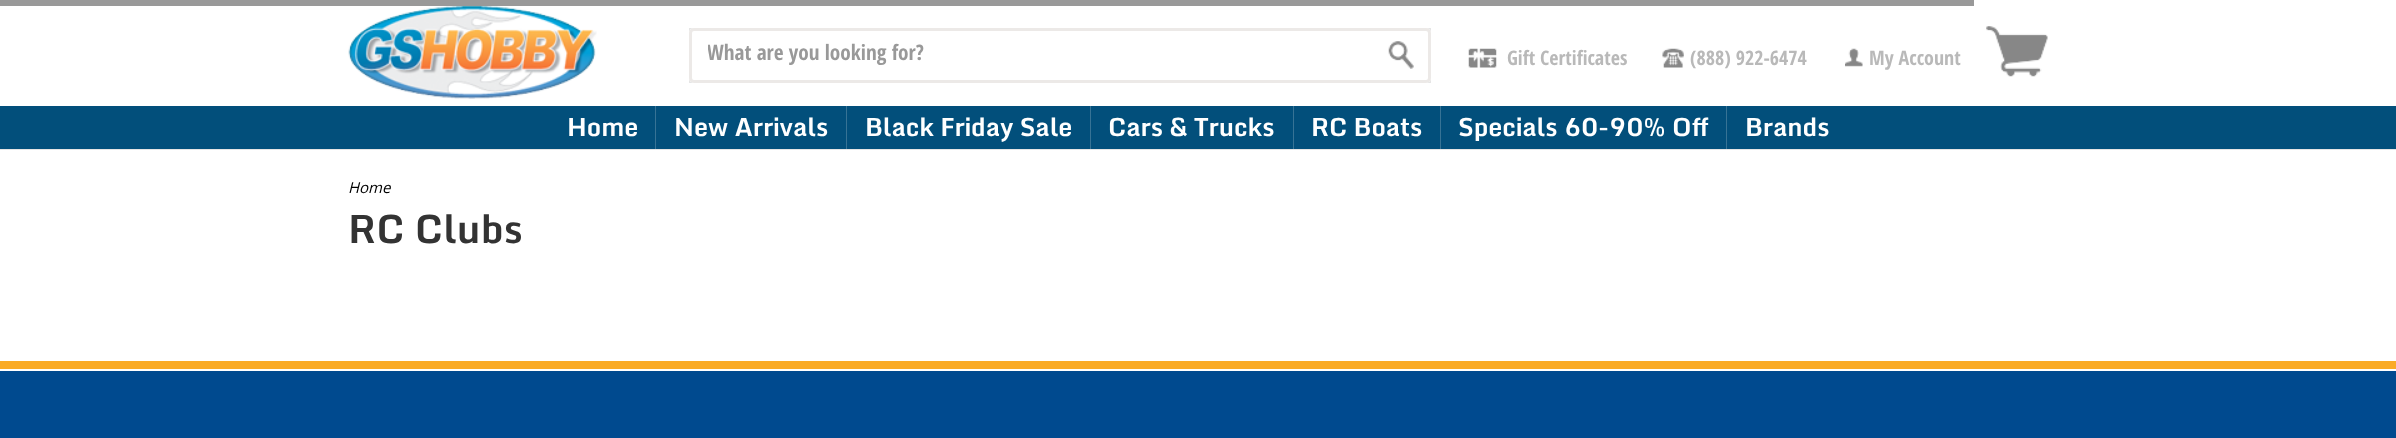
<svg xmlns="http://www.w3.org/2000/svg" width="2396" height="438">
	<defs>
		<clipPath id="clip1"><rect x="708" y="38" width="705" height="28" /></clipPath>
	</defs>
	<rect width="100%" height="100%" fill="#FFFFFF" />
	<rect x="0" y="0" width="1974" height="6" fill="#999999" />
	<rect x="0" y="149" width="2396" height="1" fill="#E5E5E5" />
	<image x="348" y="6" width="249" height="93" href="assets/img1.png" />
	<rect x="689" y="28" width="742" height="55" fill="#E5E5E5" />
	<rect x="689" y="28" width="742" height="55" rx="5" fill="#FFFFFF" />
	<image x="1388" y="41" width="26" height="28" href="assets/img2.png" />
	<rect x="690.5" y="29.5" width="739" height="52" rx="3.5" fill="none" stroke="#ECE9E7" stroke-width="3" />
	<g clip-path="url(#clip1)">
		<text x="707" y="60" font-family="Open Sans Condensed" font-size="21.25" font-weight="700" fill="#999999">What are you looking for?</text>
	</g>
	<image x="1468" y="48" width="29" height="20" href="assets/img3.png" />
	<text x="1507" y="65" font-family="Open Sans Condensed" font-size="20" font-weight="700" fill="#B9B9B9">Gift Certificates</text>
	<image x="1662" y="48" width="22" height="20" href="assets/img4.png" />
	<text x="1690" y="65" font-family="Open Sans Condensed" font-size="20" font-weight="700" fill="#B9B9B9">(888) 922-6474</text>
	<image x="1845" y="48" width="18" height="19" href="assets/img5.png" />
	<text x="1869" y="65" font-family="Open Sans Condensed" font-size="20" font-weight="700" fill="#B9B9B9">My Account</text>
	<image x="1986" y="26" width="62" height="51" href="assets/img6.png" />
	<rect x="0" y="106" width="2396" height="43" fill="#024F7B" />
	<rect x="655" y="106" width="1" height="43" fill="#377395" />
	<text x="567" y="136" font-family="Monda" font-size="25" font-weight="700" fill="#FFFFFF">Home</text>
	<rect x="846" y="106" width="1" height="43" fill="#377395" />
	<text x="674" y="136" font-family="Monda" font-size="25" font-weight="700" fill="#FFFFFF">New Arrivals</text>
	<rect x="1090" y="106" width="1" height="43" fill="#377395" />
	<text x="865" y="136" font-family="Monda" font-size="25" font-weight="700" fill="#FFFFFF">Black Friday Sale</text>
	<rect x="1293" y="106" width="1" height="43" fill="#377395" />
	<text x="1108" y="136" font-family="Monda" font-size="25" font-weight="700" fill="#FFFFFF">Cars &amp; Trucks</text>
	<rect x="1440" y="106" width="1" height="43" fill="#377395" />
	<text x="1311" y="136" font-family="Monda" font-size="25" font-weight="700" fill="#FFFFFF">RC Boats</text>
	<rect x="1726" y="106" width="1" height="43" fill="#377395" />
	<g font-family="Monda" font-size="25" font-weight="700" fill="#FFFFFF">
		<text x="1458" y="136">Specials 60-90% Off</text>
		<text x="1745" y="136">Brands</text>
	</g>
	<text x="348" y="193" font-family="Open Sans" font-size="15" font-style="italic" fill="#000000">Home</text>
	<text x="348" y="243" font-family="Monda" font-size="38.75" font-weight="700" letter-spacing="0.25" fill="#333333">RC Clubs</text>
	<rect x="0" y="361" width="2396" height="8" fill="#FAAB26" />
	<rect x="0" y="371" width="2396" height="67" fill="#004A8F" />
</svg>
